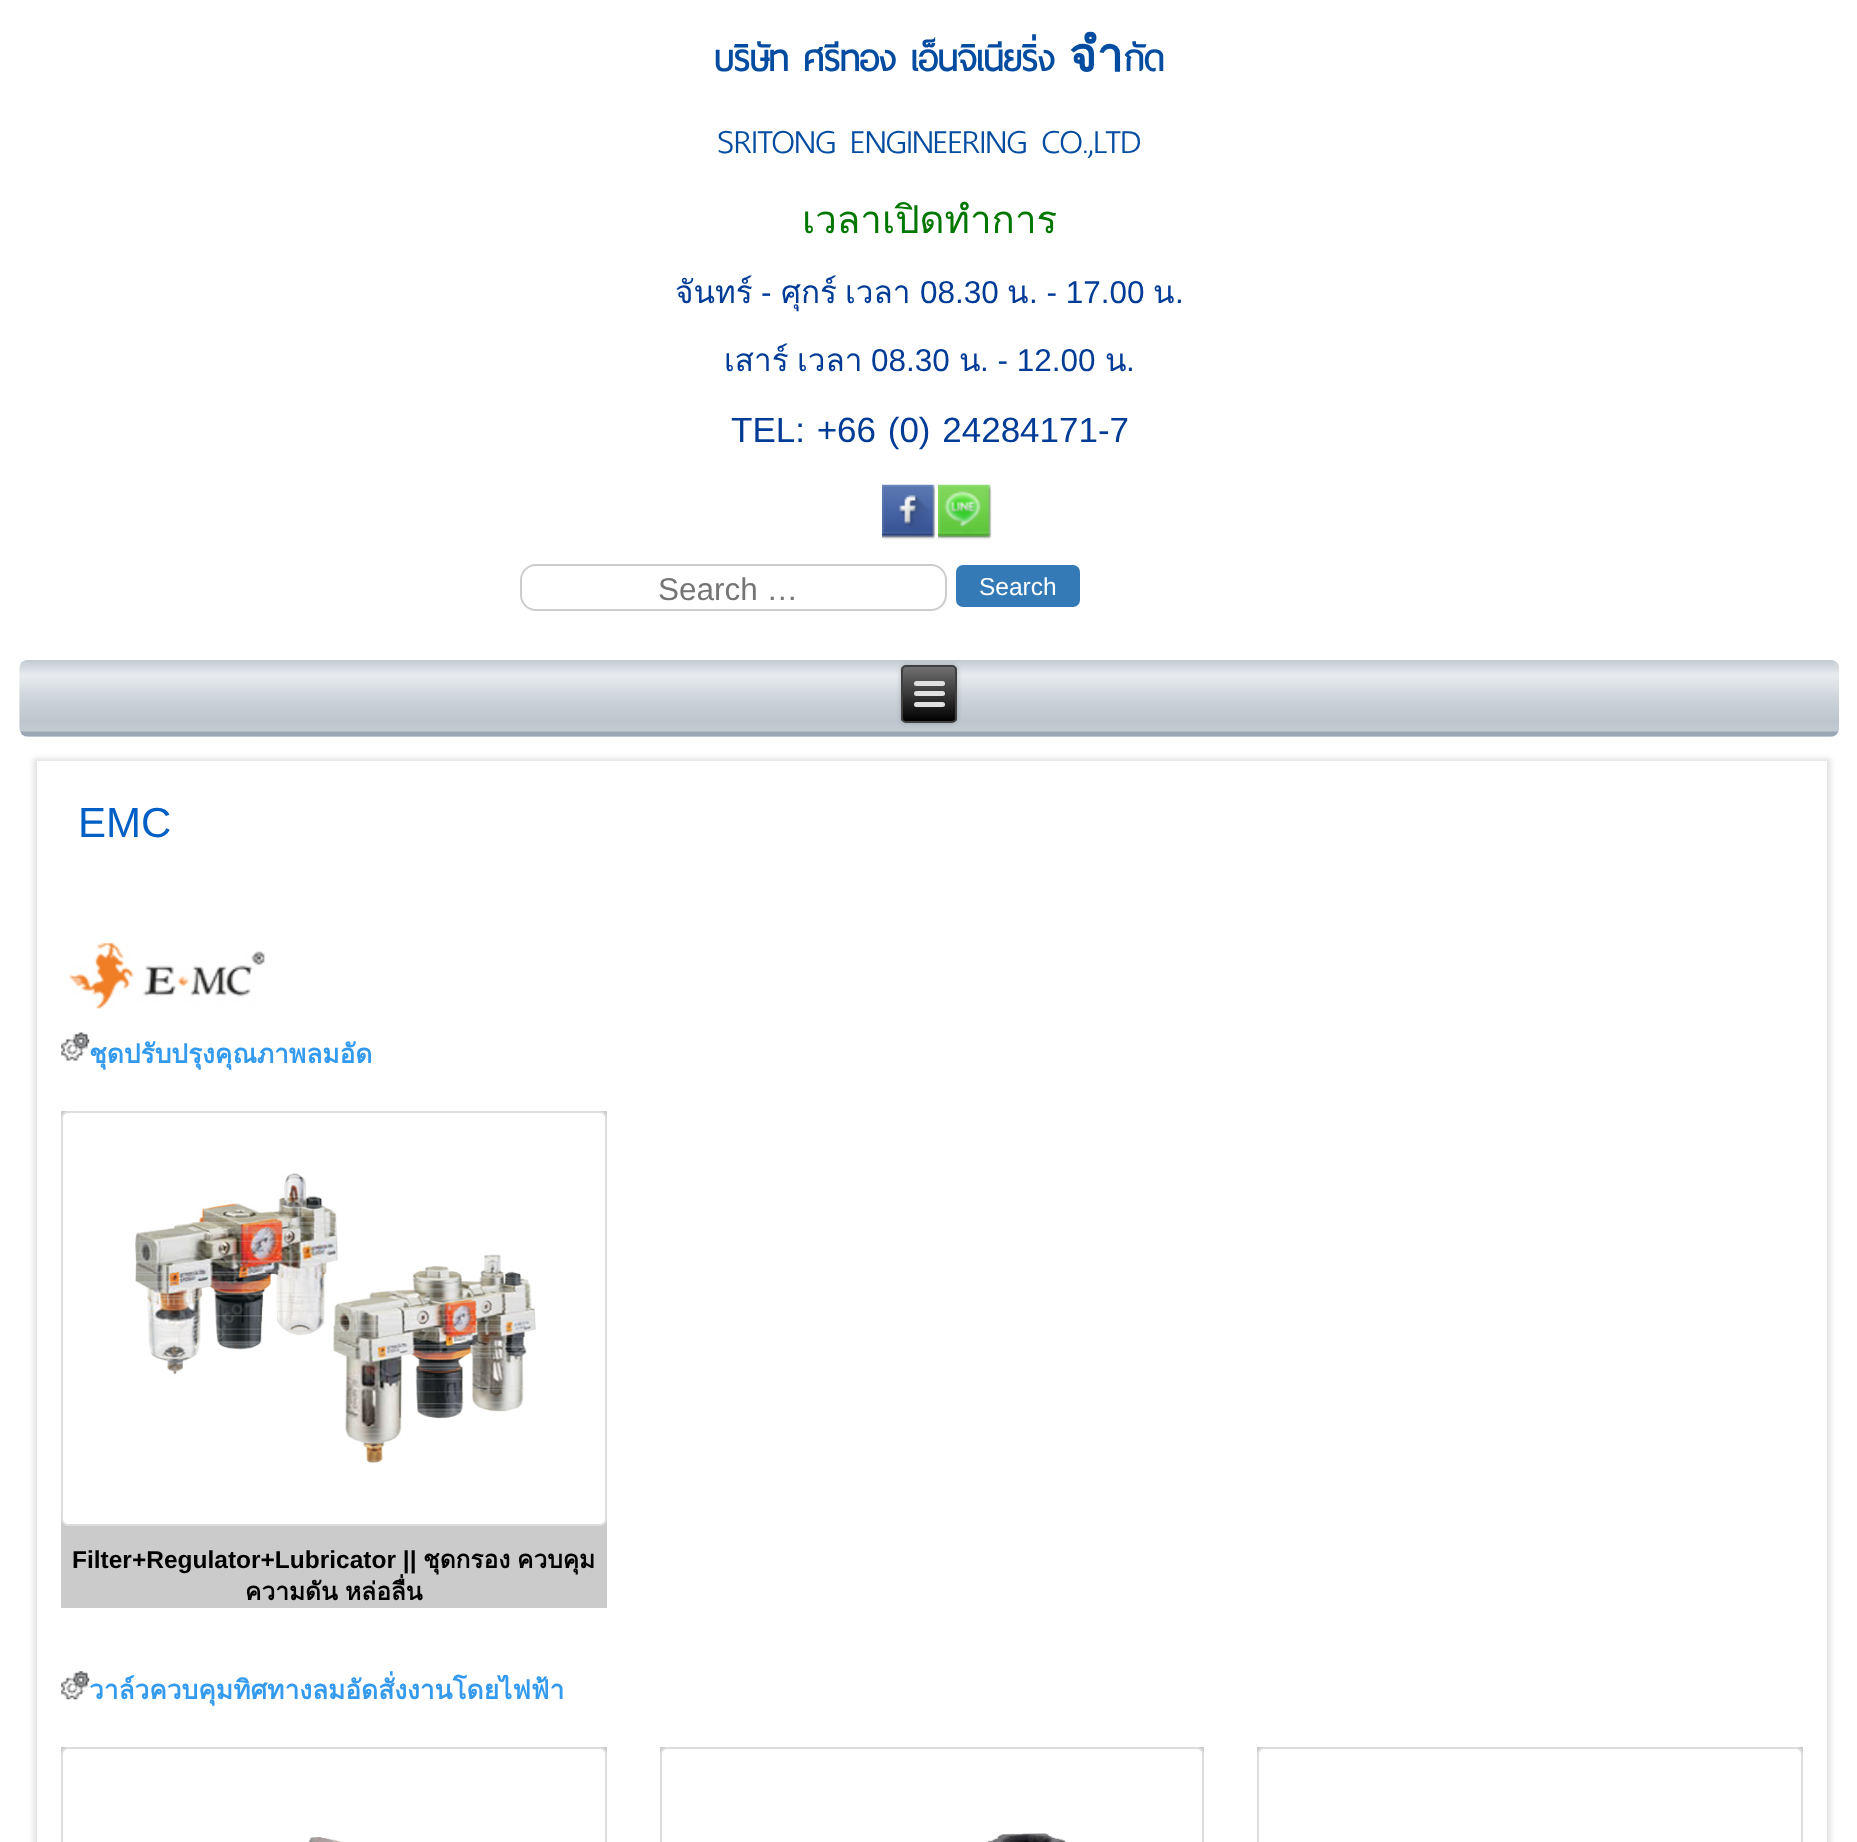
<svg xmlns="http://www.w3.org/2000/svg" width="1857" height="1842">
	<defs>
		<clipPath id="clip1"><rect x="901" y="665" width="56" height="58" rx="5" /></clipPath>
		<linearGradient id="g1" gradientUnits="userSpaceOnUse" x1="929" y1="667" x2="929" y2="721"><stop offset="0" stop-color="#707070" /><stop offset="1" stop-color="#000000" /></linearGradient>
	</defs>
	<rect width="100%" height="100%" fill="#FFFFFF" />
	<text x="714" y="71" font-family="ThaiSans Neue" font-size="47.25" font-weight="700" fill="#034CA0">บริษัท ศรีทอง เอ็นจิเนียริ่ง จำกัด</text>
	<text x="717" y="153" font-family="ThaiSans Neue" font-size="45" font-weight="300" fill="#034CA0">SRITONG ENGINEERING CO.,LTD</text>
	<text x="802" y="233" font-family="Loma" font-size="38.5" fill="#027700">เวลาเปิดทำการ</text>
	<text x="675" y="303" font-family="Loma" font-size="31.5" fill="#003B96">จันทร์</text>
	<text x="761" y="303" font-family="Liberation Sans" font-size="31.5" fill="#003B96">-</text>
	<g font-family="Loma" font-size="31.5" fill="#003B96">
		<text x="781" y="303">ศุกร์</text>
		<text x="845" y="303">เวลา</text>
	</g>
	<text x="920" y="303" font-family="Liberation Sans" font-size="31.5" fill="#003B96">08.30</text>
	<text x="1007" y="303" font-family="Loma" font-size="31.5" fill="#003B96">น</text>
	<text x="1029" y="303" font-family="Liberation Sans" font-size="31.5" fill="#003B96">. - 17.00</text>
	<text x="1153" y="303" font-family="Loma" font-size="31.5" fill="#003B96">น</text>
	<text x="1175" y="303" font-family="Liberation Sans" font-size="31.5" fill="#003B96">.</text>
	<g font-family="Loma" font-size="31.5" fill="#003B96">
		<text x="724" y="371">เสาร์</text>
		<text x="797" y="371">เวลา</text>
	</g>
	<text x="871" y="371" font-family="Liberation Sans" font-size="31.5" fill="#003B96">08.30</text>
	<text x="959" y="371" font-family="Loma" font-size="31.5" fill="#003B96">น</text>
	<text x="980" y="371" font-family="Liberation Sans" font-size="31.5" fill="#003B96">. - 12.00</text>
	<text x="1105" y="371" font-family="Loma" font-size="31.5" fill="#003B96">น</text>
	<text x="1126" y="371" font-family="Liberation Sans" font-size="31.5" fill="#003B96">.</text>
	<text x="731" y="442" word-spacing="2" font-family="Liberation Sans" font-size="35" fill="#003B96">TEL: +66 (0) 24284171-7</text>
	<image x="882" y="484" width="54" height="56" href="assets/img1.png" />
	<image x="938" y="484" width="54" height="56" href="assets/img2.png" />
	<rect x="521" y="565" width="425" height="45" rx="15" fill="none" stroke="#CCCCCC" stroke-width="2" />
	<text x="658" y="600" font-family="Liberation Sans" font-size="31.5" fill="#757575">Search …</text>
	<rect x="956" y="565" width="124" height="42" rx="7" fill="#337AB7" />
	<text x="979" y="595" font-family="Liberation Sans" font-size="24.5" fill="#FFFFFF">Search</text>
	<image x="19" y="660" width="1821" height="77" href="assets/img3.png" />
	<rect x="901" y="665" width="56" height="58" rx="5" fill="#000000" fill-opacity="0.2" filter="blur(2.5px)" />
	<g clip-path="url(#clip1)">
		<rect x="901" y="667" width="56" height="54" fill="url(#g1)" />
	</g>
	<rect x="902" y="666" width="54" height="56" rx="4" fill="none" stroke="#404040" stroke-width="2" />
	<rect x="914" y="681" width="31" height="5" rx="2.5" fill="#E0E0E0" />
	<rect x="914" y="691" width="31" height="5" rx="2.5" fill="#E0E0E0" />
	<rect x="914" y="702" width="31" height="5" rx="2.5" fill="#E0E0E0" />
	<rect x="33" y="758" width="1798" height="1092" fill="#000000" fill-opacity="0.1" filter="blur(2.5px)" />
	<rect x="37" y="761" width="1790" height="1081" fill="#FFFFFF" />
	<text x="78" y="837" font-family="Liberation Sans" font-size="42" fill="#005FC5">EMC</text>
	<image x="69" y="942" width="196" height="67" href="assets/img4.png" />
	<image x="61" y="1032" width="29" height="29" href="assets/img5.png" />
	<text x="89" y="1063" font-family="Loma" font-size="26.25" font-weight="700" fill="#339AED">ชุดปรับปรุงคุณภาพลมอัด</text>
	<rect x="61" y="1111" width="546" height="497" fill="#CBCBCB" />
	<rect x="62" y="1112" width="544" height="413" rx="6" fill="#FFFFFF" stroke="#DDDDDD" stroke-width="2" />
	<image x="135" y="1173" width="401" height="290" href="assets/img6.png" />
	<text x="72" y="1568" font-family="Liberation Sans" font-size="24.5" font-weight="700" fill="#000000">Filter+Regulator+Lubricator ||</text>
	<g font-family="Loma" font-size="24.5" font-weight="700" fill="#000000">
		<text x="423" y="1568">ชุดกรอง</text>
		<text x="517" y="1568">ควบคุม</text>
		<text x="245" y="1600" word-spacing="-1">ความดัน หล่อลื่น</text>
	</g>
	<image x="61" y="1671" width="29" height="29" href="assets/img7.png" />
	<text x="89" y="1699" font-family="Loma" font-size="26.25" font-weight="700" fill="#339AED">วาล์วควบคุมทิศทางลมอัดสั่งงานโดยไฟฟ้า</text>
	<rect x="61" y="1747" width="546" height="7" fill="#CBCBCB" />
	<rect x="62" y="1748" width="544" height="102" rx="6" fill="#FFFFFF" stroke="#DDDDDD" stroke-width="2" />
	<image x="308" y="1837" width="33" height="5" href="assets/img8.png" />
	<rect x="660" y="1747" width="544" height="7" fill="#CBCBCB" />
	<rect x="661" y="1748" width="542" height="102" rx="6" fill="#FFFFFF" stroke="#DDDDDD" stroke-width="2" />
	<image x="986" y="1833" width="80" height="9" href="assets/img9.png" />
	<rect x="1257" y="1747" width="546" height="7" fill="#CBCBCB" />
	<rect x="1258" y="1748" width="544" height="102" rx="6" fill="#FFFFFF" stroke="#DDDDDD" stroke-width="2" />
</svg>
